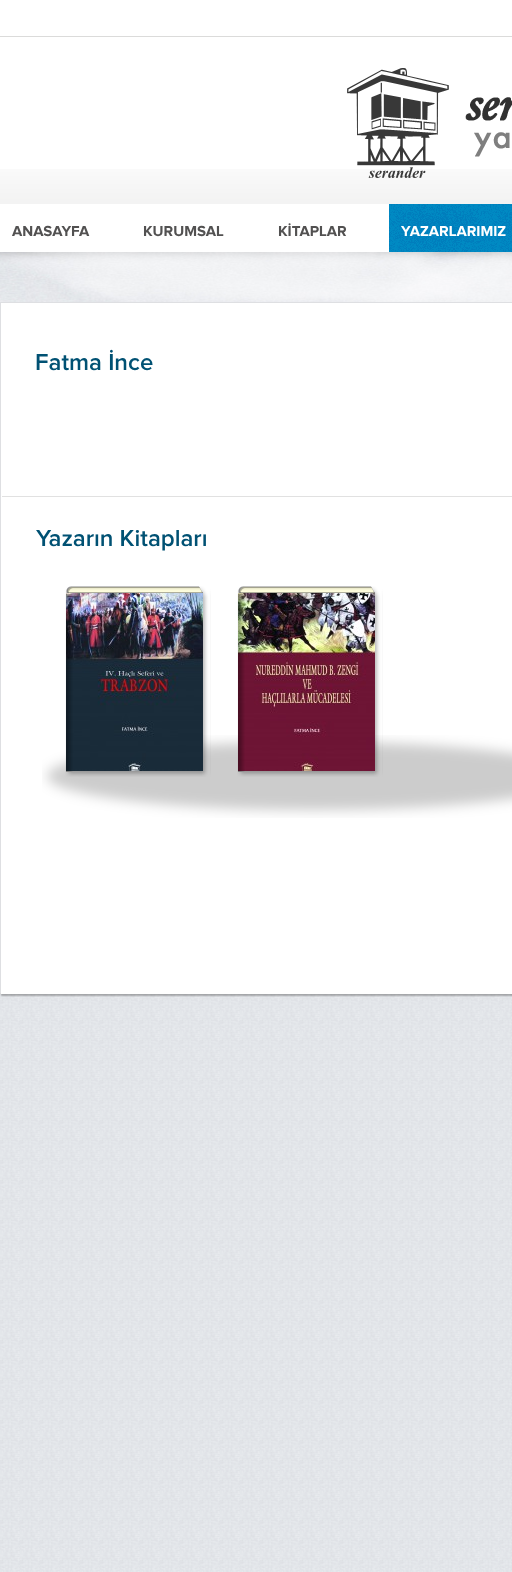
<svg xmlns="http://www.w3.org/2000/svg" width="512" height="1572">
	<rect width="100%" height="100%" fill="#FFFFFF" />
	<image x="0" y="169" width="512" height="35" href="assets/img1.png" />
	<rect x="0" y="36" width="512" height="1" fill="#DBDBDA" />
	<image x="347" y="68" width="165" height="110" href="assets/img2.png" />
	<g font-family="Proxima Nova" font-size="15" font-weight="700" fill="#525151">
		<text x="12" y="236">ANASAYFA</text>
		<text x="143" y="236">KURUMSAL</text>
		<text x="278" y="236">KİTAPLAR</text>
	</g>
	<image x="389" y="204" width="123" height="48" href="assets/img3.png" />
	<text x="401" y="236" font-family="Proxima Nova" font-size="15" font-weight="700" fill="#FFFFFF">YAZARLARIMIZ</text>
	<image x="0" y="994" width="512" height="578" href="assets/img4.png" />
	<image x="0" y="252" width="512" height="50" href="assets/img5.png" />
	<rect x="0" y="302" width="512" height="1" fill="#DEDFE2" />
	<rect x="0" y="302" width="1" height="691" fill="#DEDFE2" />
	<text x="35" y="370" font-family="Proxima Nova" font-size="24" font-weight="600" fill="#005173">Fatma İnce</text>
	<rect x="2" y="496" width="510" height="1" fill="#E1E1E1" />
	<text x="36" y="546" font-family="Proxima Nova" font-size="24" font-weight="600" fill="#005173">Yazarın Kitapları</text>
	<image x="42" y="735" width="470" height="83" href="assets/img6.png" />
	<image x="65" y="586" width="146" height="191" href="assets/img7.png" />
	<image x="66" y="593" width="137" height="178" href="assets/img8.png" />
	<image x="66" y="594" width="7" height="178" href="assets/img9.png" />
	<image x="237" y="586" width="146" height="191" href="assets/img10.png" />
	<image x="238" y="593" width="137" height="178" href="assets/img11.png" />
	<image x="238" y="594" width="7" height="178" href="assets/img12.png" />
	<image x="0" y="993" width="512" height="4" href="assets/img13.png" />
</svg>
